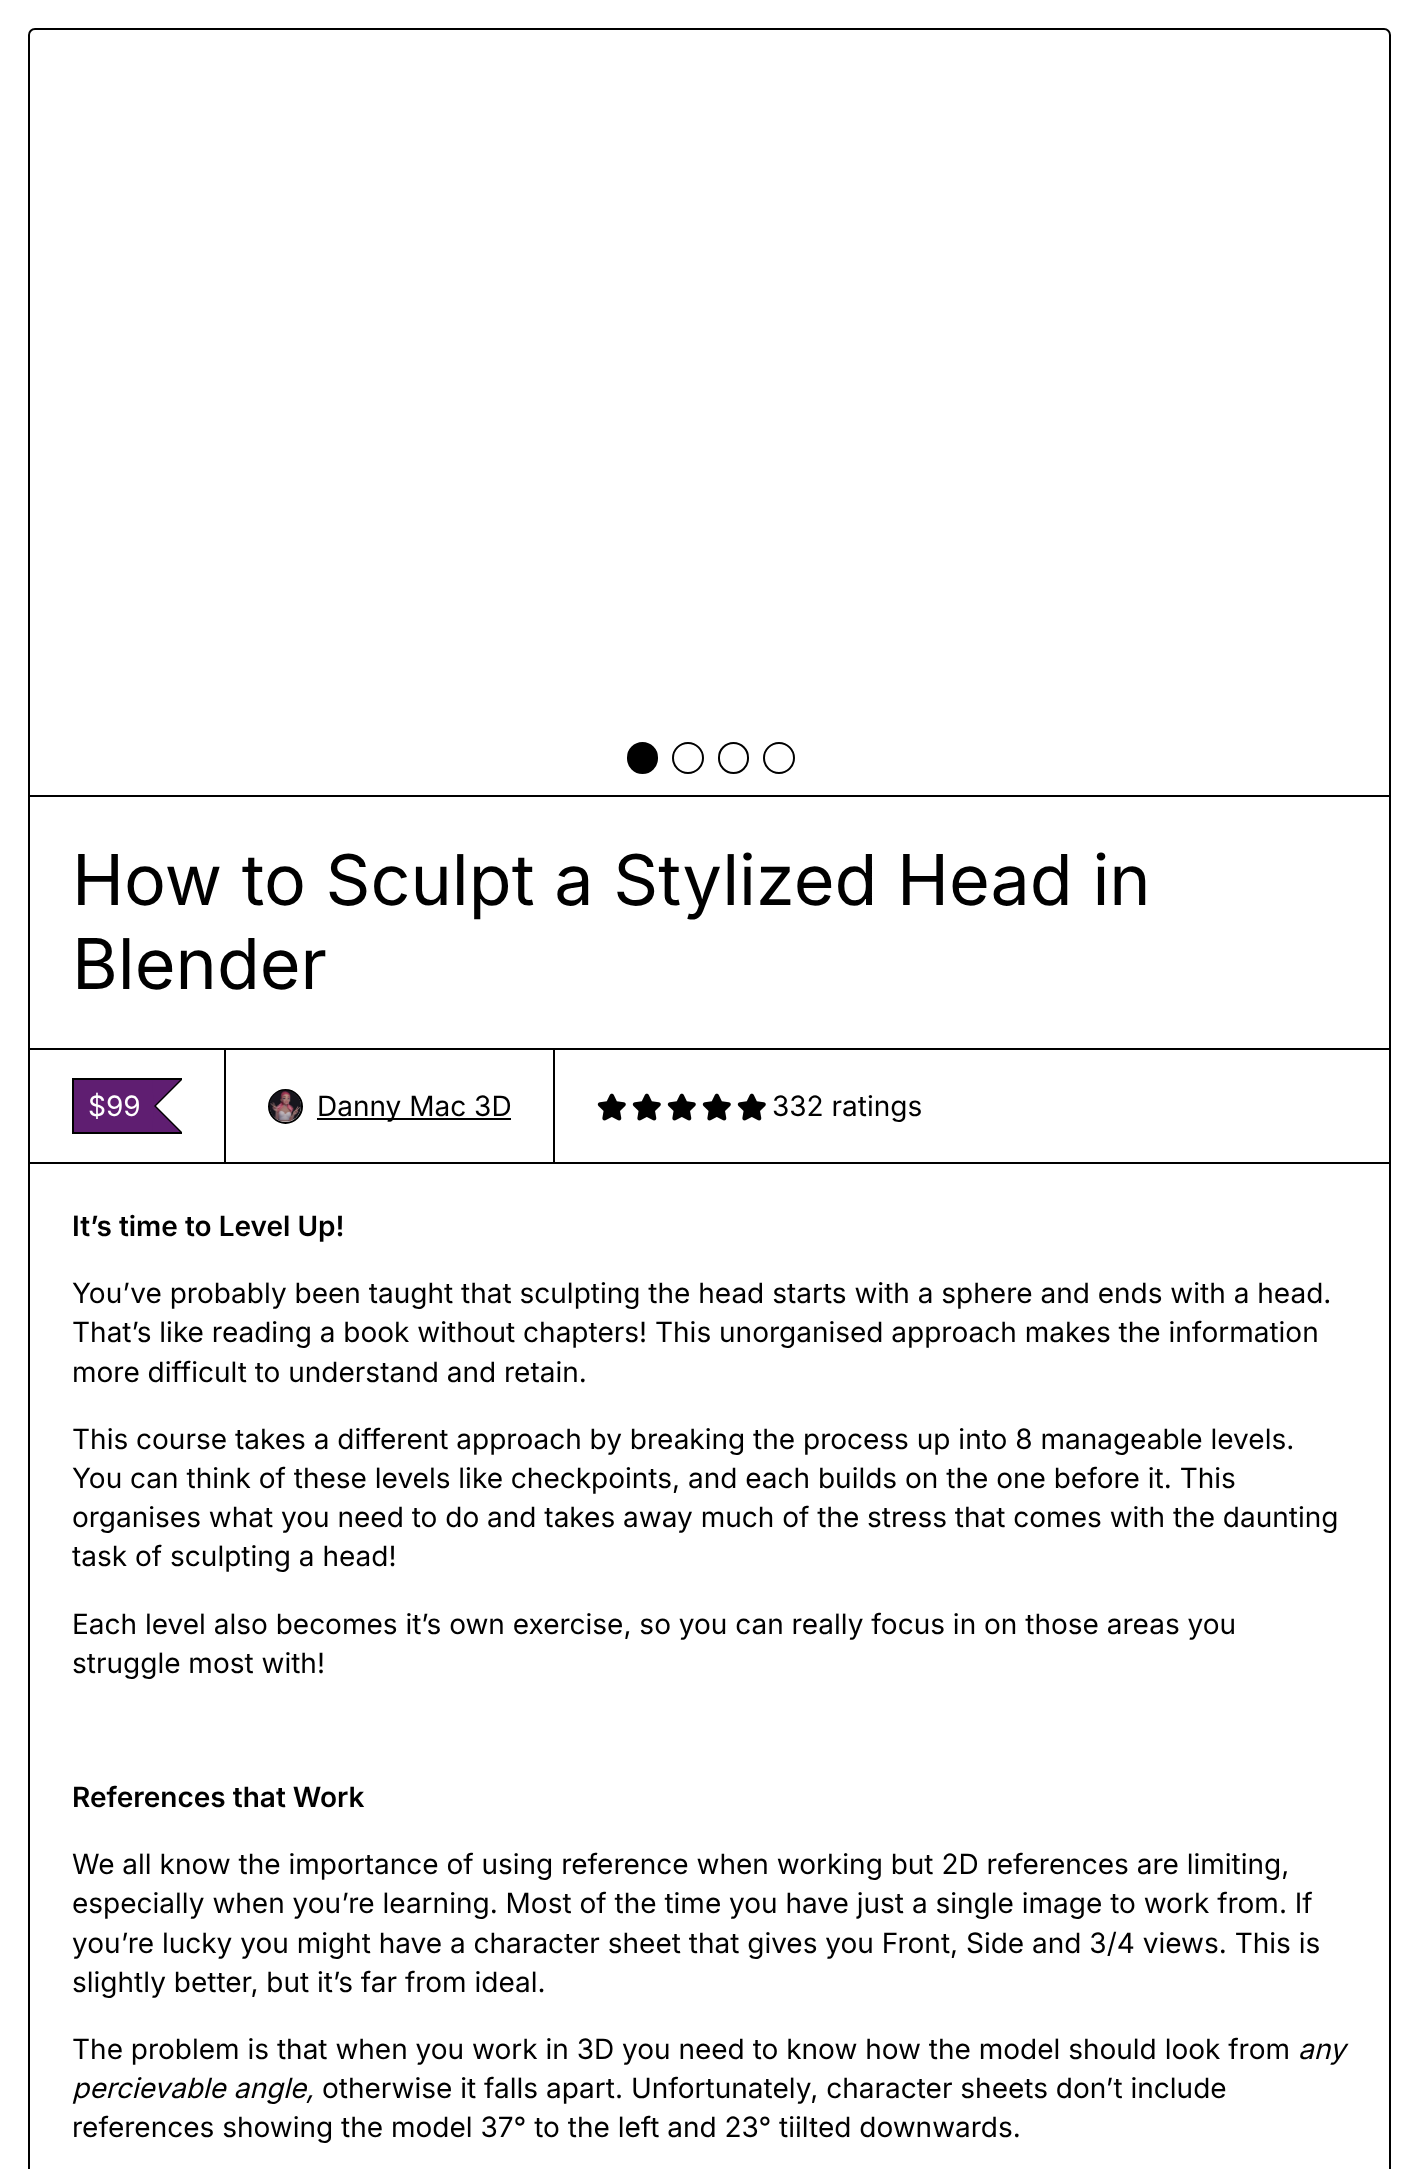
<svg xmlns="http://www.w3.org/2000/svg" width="1418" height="2169">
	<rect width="100%" height="100%" fill="#FFFFFF" />
	<rect x="29" y="29" width="1361" height="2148" rx="6" fill="none" stroke="#000000" stroke-width="2" />
	<rect x="30" y="795" width="1360" height="2" fill="#000000" />
	<rect x="628" y="743" width="29" height="30" rx="14.5" fill="#000000" stroke="#000000" stroke-width="2" />
	<circle cx="688" cy="758" r="15" fill="none" stroke="#000000" stroke-width="2" />
	<rect x="719" y="743" width="29" height="30" rx="14.5" fill="none" stroke="#000000" stroke-width="2" />
	<circle cx="779" cy="758" r="15" fill="none" stroke="#000000" stroke-width="2" />
	<g font-family="Inter" font-size="70" fill="#000000">
		<text x="72" y="905">How to Sculpt a Stylized Head in</text>
		<text x="72" y="989">Blender</text>
	</g>
	<rect x="555" y="1048" width="835" height="2" fill="#000000" />
	<rect x="29" y="1049" width="196" height="114" fill="none" stroke="#000000" stroke-width="2" />
	<rect x="72" y="1078" width="110" height="2" fill="#000000" />
	<rect x="72" y="1132" width="110" height="2" fill="#000000" />
	<rect x="72" y="1078" width="2" height="56" fill="#000000" />
	<rect x="74" y="1080" width="80" height="52" fill="#5F1E71" />
	<path d="M154 1080H182L156 1106ZM182 1132H154L156 1106Z" fill="#000000" />
	<rect x="154" y="1104" width="2" height="4" fill="#000000" />
	<path d="M152 1080H180L154 1106ZM180 1132H152L154 1106Z" fill="#5F1E71" />
	<text x="88" y="1116" font-family="Inter" font-size="28" fill="#FFFFFF">$99</text>
	<rect x="225" y="1049" width="329" height="114" fill="none" stroke="#000000" stroke-width="2" />
	<circle cx="285.5" cy="1106.5" r="16.5" fill="none" stroke="#000000" stroke-width="2" />
	<image x="269" y="1090" width="32" height="32" href="assets/img1.png" />
	<rect x="317" y="1118" width="194" height="2" fill="#000000" />
	<text x="317" y="1116" font-family="Inter" font-size="28" fill="#000000">Danny Mac 3D</text>
	<image x="597" y="1093" width="29" height="28" href="assets/img2.png" />
	<image x="632" y="1093" width="29" height="28" href="assets/img2.png" />
	<image x="667" y="1093" width="29" height="28" href="assets/img2.png" />
	<image x="702" y="1093" width="29" height="28" href="assets/img2.png" />
	<image x="737" y="1093" width="29" height="28" href="assets/img2.png" />
	<text x="772" y="1116" font-family="Inter" font-size="28" fill="#000000">332 ratings</text>
	<rect x="555" y="1162" width="835" height="2" fill="#000000" />
	<text x="72" y="1236" font-family="Inter" font-size="28" font-weight="600" fill="#000000">It’s time to Level Up!</text>
	<g font-family="Inter" font-size="28" fill="#000000">
		<text x="72" y="1303">You’ve probably been taught that sculpting the head starts with a sphere and ends with a head.</text>
		<text x="72" y="1342">That’s like reading a book without chapters! This unorganised approach makes the information</text>
		<text x="72" y="1382">more difficult to understand and retain.</text>
		<text x="72" y="1449">This course takes a different approach by breaking the process up into 8 manageable levels.</text>
		<text x="72" y="1488">You can think of these levels like checkpoints, and each builds on the one before it. This</text>
		<text x="72" y="1527">organises what you need to do and takes away much of the stress that comes with the daunting</text>
		<text x="72" y="1566">task of sculpting a head!</text>
		<text x="72" y="1634">Each level also becomes it’s own exercise, so you can really focus in on those areas you</text>
		<text x="72" y="1673">struggle most with!</text>
	</g>
	<text x="72" y="1807" font-family="Inter" font-size="28" font-weight="600" fill="#000000">References that Work</text>
	<g font-family="Inter" font-size="28" fill="#000000">
		<text x="72" y="1874">We all know the importance of using reference when working but 2D references are limiting,</text>
		<text x="72" y="1913">especially when you’re learning. Most of the time you have just a single image to work from. If</text>
		<text x="72" y="1953">you’re lucky you might have a character sheet that gives you Front, Side and 3/4 views. This is</text>
		<text x="72" y="1992">slightly better, but it’s far from ideal.</text>
		<text x="72" y="2059">The problem is that when you work in 3D you need to know how the model should look from</text>
	</g>
	<g font-family="Inter" font-size="28" font-style="italic" fill="#000000">
		<text x="1298" y="2059">any</text>
		<text x="72" y="2098">percievable angle,</text>
	</g>
	<g font-family="Inter" font-size="28" fill="#000000">
		<text x="322" y="2098">otherwise it falls apart. Unfortunately, character sheets don’t include</text>
		<text x="72" y="2137">references showing the model 37° to the left and 23° tiilted downwards.</text>
	</g>
</svg>
